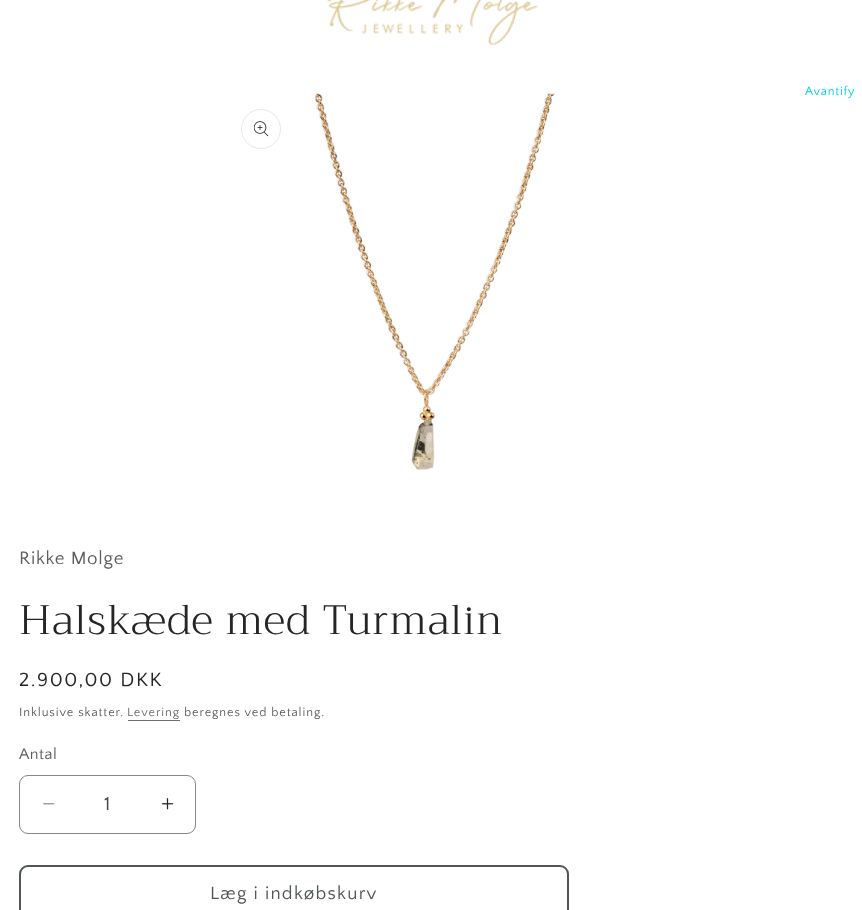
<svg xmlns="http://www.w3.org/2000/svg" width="862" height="910">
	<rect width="100%" height="100%" fill="#FFFFFF" />
	<image x="327" y="0" width="211" height="45" href="assets/img1.png" />
	<text x="805" y="95" font-family="Quattrocento Sans" font-size="12.5" letter-spacing="0.75" fill="#02D3DC">Avantify</text>
	<circle cx="261" cy="129" r="19.5" fill="none" stroke="#E9E9E9" />
	<image x="254" y="121" width="15" height="16" href="assets/img2.png" />
	<image x="314" y="93" width="241" height="377" href="assets/img3.png" />
	<text x="19" y="564" font-family="Quattrocento Sans" font-size="18.75" letter-spacing="0.75" fill="#5C5C5C">Rikke Molge</text>
	<text x="19" y="634" font-family="Trirong" font-size="41.25" font-weight="300" letter-spacing="0.8" fill="#252525">Halskæde med Turmalin</text>
	<text x="19" y="686" font-family="Quattrocento Sans" font-size="20" letter-spacing="1.6" fill="#252525">2.900,00 DKK</text>
	<text x="19" y="716" font-family="Quattrocento Sans" font-size="12.5" letter-spacing="0.9" fill="#5C5C5C">Inklusive skatter.</text>
	<text x="127" y="716" font-family="Quattrocento Sans" font-size="12.5" letter-spacing="0.9" fill="#6A6F6F">Levering</text>
	<rect x="128" y="720" width="52" height="1" fill="#6A6F6F" />
	<text x="184" y="716" font-family="Quattrocento Sans" font-size="12.5" letter-spacing="0.9" fill="#5C5C5C">beregnes ved betaling.</text>
	<text x="19" y="759" font-family="Quattrocento Sans" font-size="16" letter-spacing="0.5" fill="#5C5C5C">Antal</text>
	<image x="43" y="803" width="12" height="2" href="assets/img4.png" />
	<image x="161" y="798" width="13" height="12" href="assets/img5.png" />
	<rect x="19.5" y="775.5" width="176" height="58" rx="8.5" fill="none" stroke="#878787" />
	<text x="104" y="810" font-family="Quattrocento Sans" font-size="20" fill="#464646">1</text>
	<rect x="20" y="866" width="548" height="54" rx="8" fill="none" stroke="#505655" stroke-width="2" />
	<text x="210" y="899" font-family="Quattrocento Sans" font-size="18.75" letter-spacing="1.25" fill="#505655">Læg i indkøbskurv</text>
</svg>
